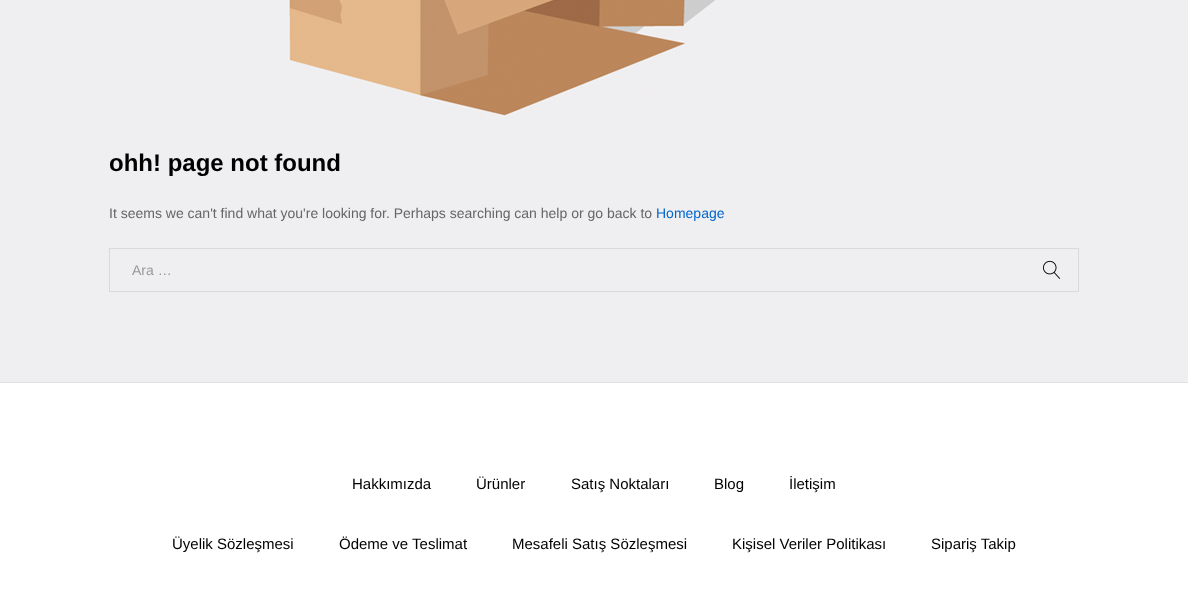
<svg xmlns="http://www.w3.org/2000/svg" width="1188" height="616">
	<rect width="100%" height="100%" fill="#FFFFFF" />
	<rect x="0" y="0" width="1188" height="382" fill="#EFEEF0" />
	<image x="288" y="0" width="427" height="117" href="assets/img1.png" />
	<text x="109" y="171" font-family="Liberation Sans" font-size="24" font-weight="700" fill="#000000">ohh! page not found</text>
	<text x="109" y="218" font-family="Liberation Sans" font-size="14" fill="#666666">It seems we can't find what you're looking for. Perhaps searching can help or go back to</text>
	<text x="656" y="218" font-family="Liberation Sans" font-size="14" fill="#0066CC">Homepage</text>
	<rect x="109.5" y="248.5" width="969" height="43" fill="none" stroke="#D9D9D9" />
	<text x="132" y="275" font-family="Liberation Sans" font-size="14" fill="#999999">Ara …</text>
	<image x="1043" y="260" width="18" height="19" href="assets/img2.png" />
	<rect x="0" y="382" width="1188" height="1" fill="#E1E1E1" />
	<g font-family="Liberation Sans" font-size="15" fill="#000000">
		<text x="352" y="489">Hakkımızda</text>
		<text x="476" y="489">Ürünler</text>
		<text x="571" y="489">Satış Noktaları</text>
		<text x="714" y="489">Blog</text>
		<text x="789" y="489">İletişim</text>
		<text x="172" y="549">Üyelik Sözleşmesi</text>
		<text x="339" y="549">Ödeme ve Teslimat</text>
		<text x="512" y="549">Mesafeli Satış Sözleşmesi</text>
		<text x="732" y="549">Kişisel Veriler Politikası</text>
		<text x="931" y="549">Sipariş Takip</text>
	</g>
</svg>
